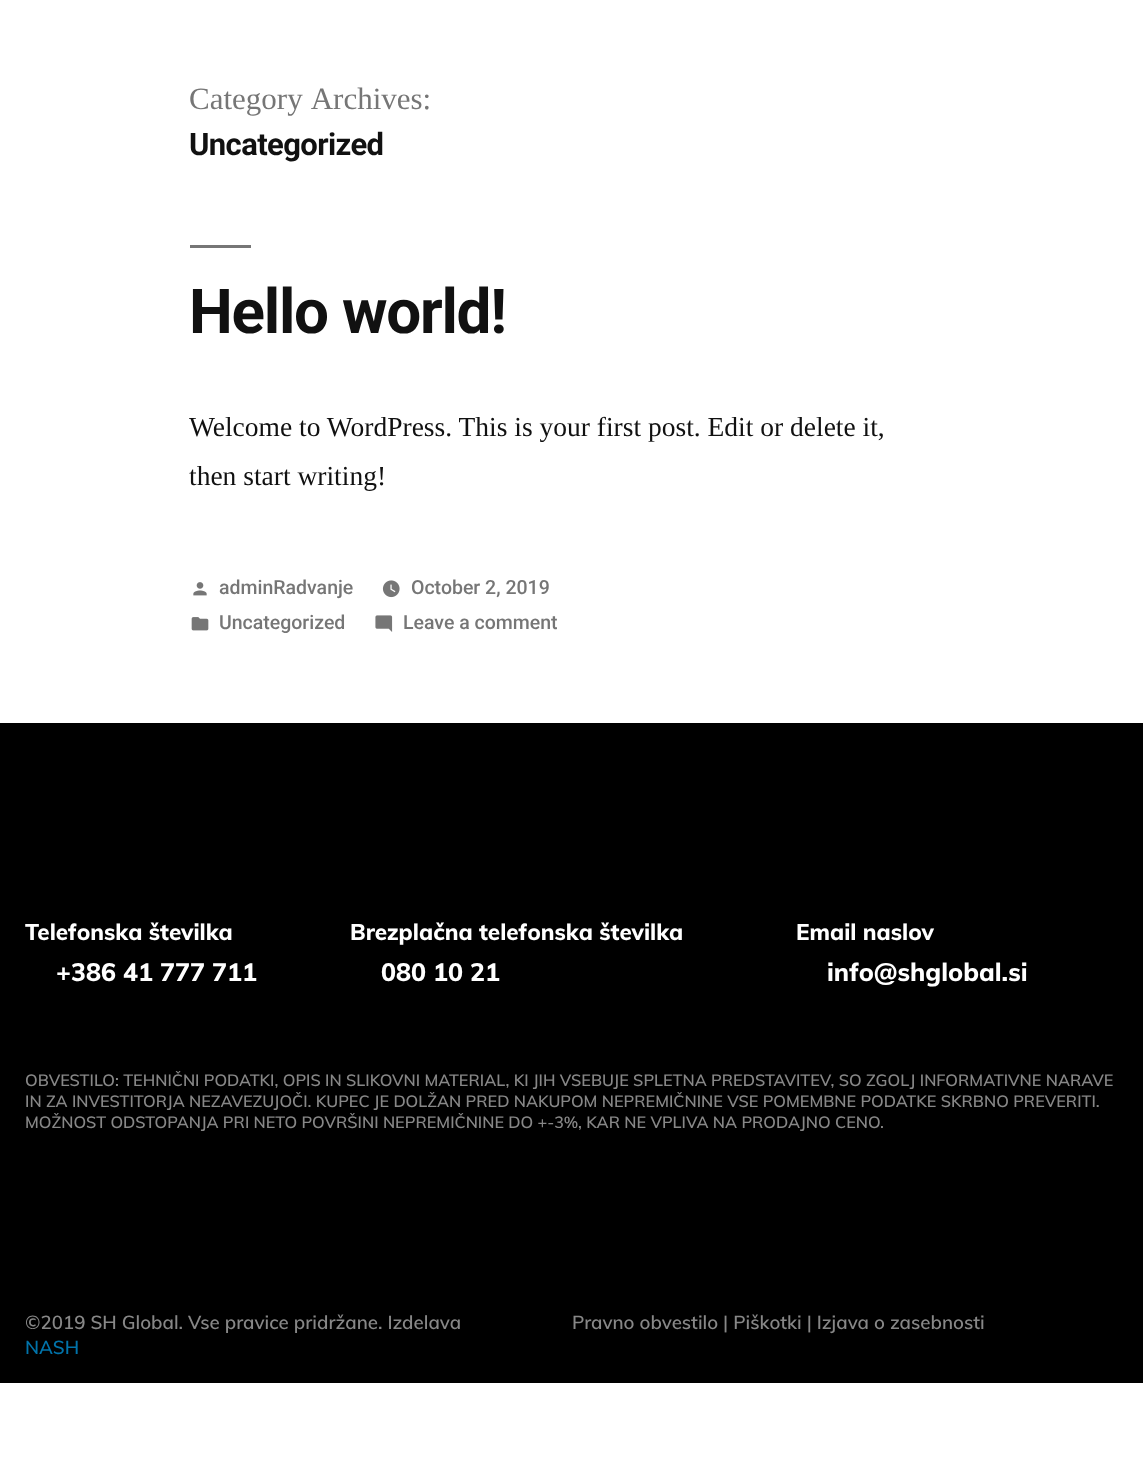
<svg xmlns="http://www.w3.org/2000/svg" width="1143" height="1473">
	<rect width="100%" height="100%" fill="#FFFFFF" />
	<text x="189" y="109" word-spacing="2" font-family="Liberation Serif" font-size="31" fill="#767676">Category Archives:</text>
	<text x="189" y="155" font-family="Roboto" font-size="31" font-weight="700" letter-spacing="-0.6" fill="#111111">Uncategorized</text>
	<rect x="190" y="245" width="61" height="3" fill="#767676" />
	<text x="189" y="333" font-family="Roboto" font-size="62" font-weight="700" letter-spacing="-1.25" fill="#111111">Hello world!</text>
	<g font-family="Liberation Serif" font-size="27.5" fill="#111111">
		<text x="189" y="436">Welcome to WordPress. This is your first post. Edit or delete it,</text>
		<text x="189" y="485">then start writing!</text>
	</g>
	<image x="193" y="582" width="14" height="14" href="assets/img1.png" />
	<text x="219" y="594" font-family="Roboto" font-size="19.5" font-weight="500" fill="#767676">adminRadvanje</text>
	<image x="382" y="580" width="18" height="18" href="assets/img2.png" />
	<text x="411" y="594" font-family="Roboto" font-size="19.5" font-weight="500" fill="#767676">October 2, 2019</text>
	<image x="191" y="617" width="18" height="14" href="assets/img3.png" />
	<text x="219" y="629" font-family="Roboto" font-size="19.5" font-weight="500" fill="#767676">Uncategorized</text>
	<image x="375" y="615" width="18" height="17" href="assets/img4.png" />
	<text x="403" y="629" font-family="Roboto" font-size="19.5" font-weight="500" fill="#767676">Leave a comment</text>
	<rect x="0" y="723" width="1143" height="660" fill="#000000" />
	<text x="25" y="940" font-family="Muli" font-size="22.5" font-weight="800" fill="#FFFFFF">Telefonska številka</text>
	<text x="56" y="981" font-family="Muli" font-size="25" font-weight="800" fill="#FFFFFF">+386 41 777 711</text>
	<text x="350" y="940" font-family="Muli" font-size="22.5" font-weight="800" fill="#FFFFFF">Brezplačna telefonska številka</text>
	<text x="381" y="981" font-family="Muli" font-size="25" font-weight="800" fill="#FFFFFF">080 10 21</text>
	<text x="796" y="940" font-family="Muli" font-size="22.5" font-weight="800" fill="#FFFFFF">Email naslov</text>
	<text x="827" y="981" font-family="Muli" font-size="25" font-weight="800" fill="#FFFFFF">info@shglobal.si</text>
	<g font-family="Muli" font-size="16.25" font-weight="600" fill="#878787">
		<text x="25" y="1086">OBVESTILO: TEHNIČNI PODATKI, OPIS IN SLIKOVNI MATERIAL, KI JIH VSEBUJE SPLETNA PREDSTAVITEV, SO ZGOLJ INFORMATIVNE NARAVE</text>
		<text x="25" y="1107">IN ZA INVESTITORJA NEZAVEZUJOČI. KUPEC JE DOLŽAN PRED NAKUPOM NEPREMIČNINE VSE POMEMBNE PODATKE SKRBNO PREVERITI.</text>
		<text x="25" y="1128">MOŽNOST ODSTOPANJA PRI NETO POVRŠINI NEPREMIČNINE DO +-3%, KAR NE VPLIVA NA PRODAJNO CENO.</text>
	</g>
	<text x="25" y="1329" font-family="Muli" font-size="18.75" font-weight="600" fill="#878787">©2019 SH Global. Vse pravice pridržane. Izdelava</text>
	<text x="25" y="1354" font-family="Muli" font-size="18.75" font-weight="600" fill="#0073AA">NASH</text>
	<text x="572" y="1329" font-family="Muli" font-size="18.75" font-weight="600" fill="#878787">Pravno obvestilo | Piškotki | Izjava o zasebnosti</text>
</svg>
